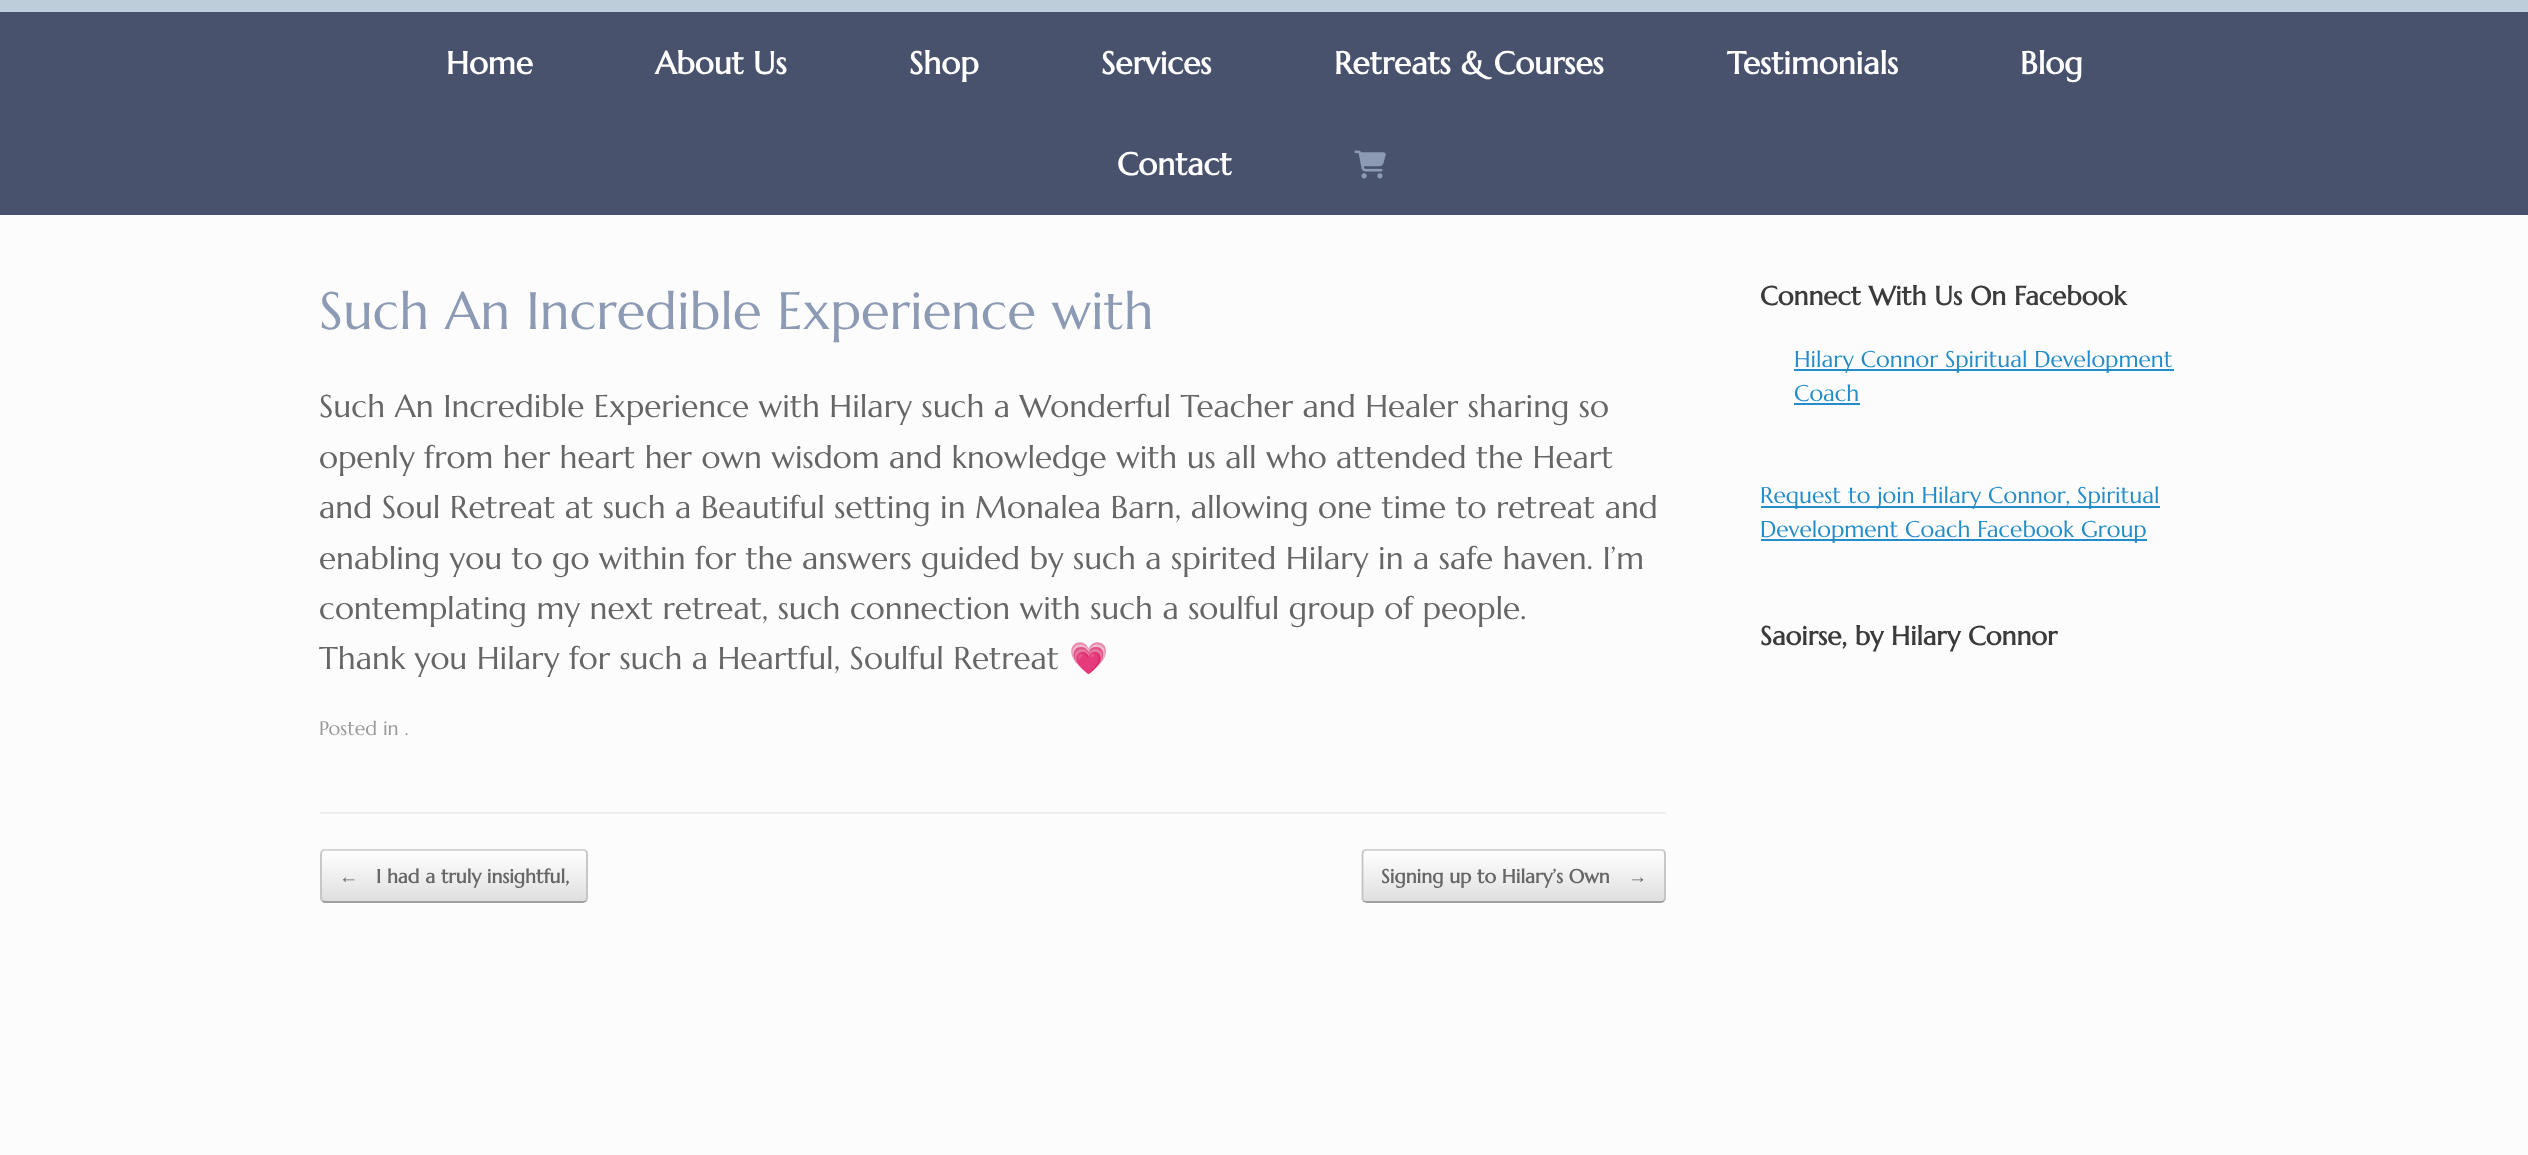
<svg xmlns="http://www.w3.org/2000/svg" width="2528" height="1155">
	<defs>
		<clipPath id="clip1"><rect x="320" y="849" width="268" height="54" rx="5" /></clipPath>
		<linearGradient id="g1" gradientUnits="userSpaceOnUse" x1="322" y1="851" x2="322" y2="800"><stop offset="0" stop-color="#DFDFDF" /><stop offset="1" stop-color="#FFFFFF" /></linearGradient>
		<linearGradient id="g2" gradientUnits="userSpaceOnUse" x1="322" y1="901" x2="322" y2="851"><stop offset="0" stop-color="#DFDFDF" /><stop offset="1" stop-color="#FFFFFF" /></linearGradient>
		<linearGradient id="g3" gradientUnits="userSpaceOnUse" x1="322" y1="952" x2="322" y2="901"><stop offset="0" stop-color="#DFDFDF" /><stop offset="1" stop-color="#FFFFFF" /></linearGradient>
		<clipPath id="clip2"><rect x="320" y="849" width="1346" height="54" /></clipPath>
		<clipPath id="clip3"><rect x="1362" y="849" width="304" height="54" rx="5" /></clipPath>
		<linearGradient id="g4" gradientUnits="userSpaceOnUse" x1="1363" y1="851" x2="1363" y2="800"><stop offset="0" stop-color="#DFDFDF" /><stop offset="1" stop-color="#FFFFFF" /></linearGradient>
		<linearGradient id="g5" gradientUnits="userSpaceOnUse" x1="1363" y1="901" x2="1363" y2="851"><stop offset="0" stop-color="#DFDFDF" /><stop offset="1" stop-color="#FFFFFF" /></linearGradient>
		<linearGradient id="g6" gradientUnits="userSpaceOnUse" x1="1363" y1="952" x2="1363" y2="901"><stop offset="0" stop-color="#DFDFDF" /><stop offset="1" stop-color="#FFFFFF" /></linearGradient>
	</defs>
	<rect width="100%" height="100%" fill="#BDCDDA" />
	<rect x="0" y="12" width="2528" height="203" fill="#48526D" />
	<g font-family="Marcellus" font-size="31.5" font-weight="700" fill="#FFFFFF">
		<text x="446" y="74">Home</text>
		<text x="655" y="74">About Us</text>
		<text x="909" y="74">Shop</text>
		<text x="1101" y="74">Services</text>
		<text x="1334" y="74">Retreats &amp; Courses</text>
		<text x="1727" y="74">Testimonials</text>
		<text x="2020" y="74">Blog</text>
		<text x="1117" y="175">Contact</text>
	</g>
	<image x="1354" y="150" width="32" height="29" href="assets/img1.png" />
	<rect x="0" y="215" width="2528" height="940" fill="#FCFCFC" />
	<rect x="320" y="812" width="1346" height="2" fill="#EEEEEE" />
	<text x="319" y="329" font-family="Marcellus" font-size="52.5" fill="#8C9AB4">Such An Incredible Experience with</text>
	<g font-family="Marcellus" font-size="31.5" fill="#666666">
		<text x="319" y="417">Such An Incredible Experience with Hilary such a Wonderful Teacher and Healer sharing so</text>
		<text x="319" y="468">openly from her heart her own wisdom and knowledge with us all who attended the Heart</text>
		<text x="319" y="518">and Soul Retreat at such a Beautiful setting in Monalea Barn, allowing one time to retreat and</text>
		<text x="319" y="569">enabling you to go within for the answers guided by such a spirited Hilary in a safe haven. I’m</text>
		<text x="319" y="619">contemplating my next retreat, such connection with such a soulful group of people.</text>
		<text x="319" y="669">Thank you Hilary for such a Heartful, Soulful Retreat</text>
	</g>
	<text x="1069" y="669" font-family="Noto Color Emoji" font-size="31.5" fill="#666666">💗</text>
	<text x="319" y="735" font-family="Marcellus" font-size="19.5" fill="#999999">Posted in .</text>
	<g clip-path="url(#clip1)">
		<rect x="320" y="849" width="268" height="2" fill="url(#g1)" />
		<rect x="320" y="851" width="268" height="50" fill="url(#g2)" />
		<rect x="320" y="901" width="268" height="2" fill="url(#g3)" />
	</g>
	<g clip-path="url(#clip2)">
		<path d="M322.5 851C323 850 324.5 849.5 325.5 849.5H583C584 849.5 585 850 586 851" fill="none" stroke="#D2D2D2" stroke-width="1.8" />
	</g>
	<path d="M586 851C586.5 851.5 587 853 587 854V898C587 899 586.5 900 586 901" fill="none" stroke="#C3C3C3" stroke-width="1.8" />
	<path d="M586 901C585 901.5 584 902 583 902H325.5C324.5 902 323 901.5 322.5 901" fill="none" stroke="#9F9F9F" stroke-width="1.8" />
	<path d="M322.5 901C321.5 900 321 899 321 898V854C321 853 321.5 851.5 322.5 851" fill="none" stroke="#C3C3C3" stroke-width="1.8" />
	<text x="339" y="883" font-family="Liberation Serif" font-size="19.25" font-weight="700" fill="#666666">←</text>
	<text x="376" y="883" font-family="Marcellus" font-size="19.25" font-weight="700" fill="#666666">I had a truly insightful,</text>
	<g clip-path="url(#clip3)">
		<rect x="1362" y="849" width="304" height="2" fill="url(#g4)" />
		<rect x="1362" y="851" width="304" height="50" fill="url(#g5)" />
		<rect x="1362" y="901" width="304" height="2" fill="url(#g6)" />
	</g>
	<g clip-path="url(#clip2)">
		<path d="M1363.5 851C1364.5 850 1365.5 849.5 1367 849.5H1661C1662 849.5 1663 850 1664 851" fill="none" stroke="#D2D2D2" stroke-width="1.8" />
	</g>
	<path d="M1664 851C1664.5 851.5 1665 853 1665 854V898C1665 899 1664.5 900 1664 901" fill="none" stroke="#C3C3C3" stroke-width="1.8" />
	<path d="M1664 901C1663 901.5 1662 902 1661 902H1367C1365.5 902 1364.5 901.5 1363.5 901" fill="none" stroke="#9F9F9F" stroke-width="1.8" />
	<path d="M1363.5 901C1363 900 1362.5 899 1362.5 898V854C1362.5 853 1363 851.5 1363.5 851" fill="none" stroke="#C3C3C3" stroke-width="1.8" />
	<text x="1381" y="883" font-family="Marcellus" font-size="19.25" font-weight="700" fill="#666666">Signing up to Hilary’s Own</text>
	<text x="1628" y="883" font-family="Liberation Serif" font-size="19.25" font-weight="700" fill="#666666">→</text>
	<text x="1760" y="305" font-family="Marcellus" font-size="26.25" font-weight="700" fill="#3B3B3B">Connect With Us On Facebook</text>
	<rect x="1794" y="369" width="380" height="2" fill="#248CC8" />
	<g font-family="Marcellus" font-size="22.75" fill="#248CC8">
		<text x="1794" y="367">Hilary Connor Spiritual Development</text>
		<text x="1794" y="401">Coach</text>
	</g>
	<rect x="1794" y="403" width="66" height="2" fill="#248CC8" />
	<rect x="1761" y="506" width="399" height="2" fill="#248CC8" />
	<text x="1760" y="503" font-family="Marcellus" font-size="22.75" fill="#248CC8">Request to join Hilary Connor, Spiritual</text>
	<rect x="1761" y="539" width="386" height="2" fill="#248CC8" />
	<text x="1760" y="537" font-family="Marcellus" font-size="22.75" fill="#248CC8">Development Coach Facebook Group</text>
	<text x="1760" y="645" font-family="Marcellus" font-size="26.25" font-weight="700" fill="#3B3B3B">Saoirse, by Hilary Connor</text>
</svg>
